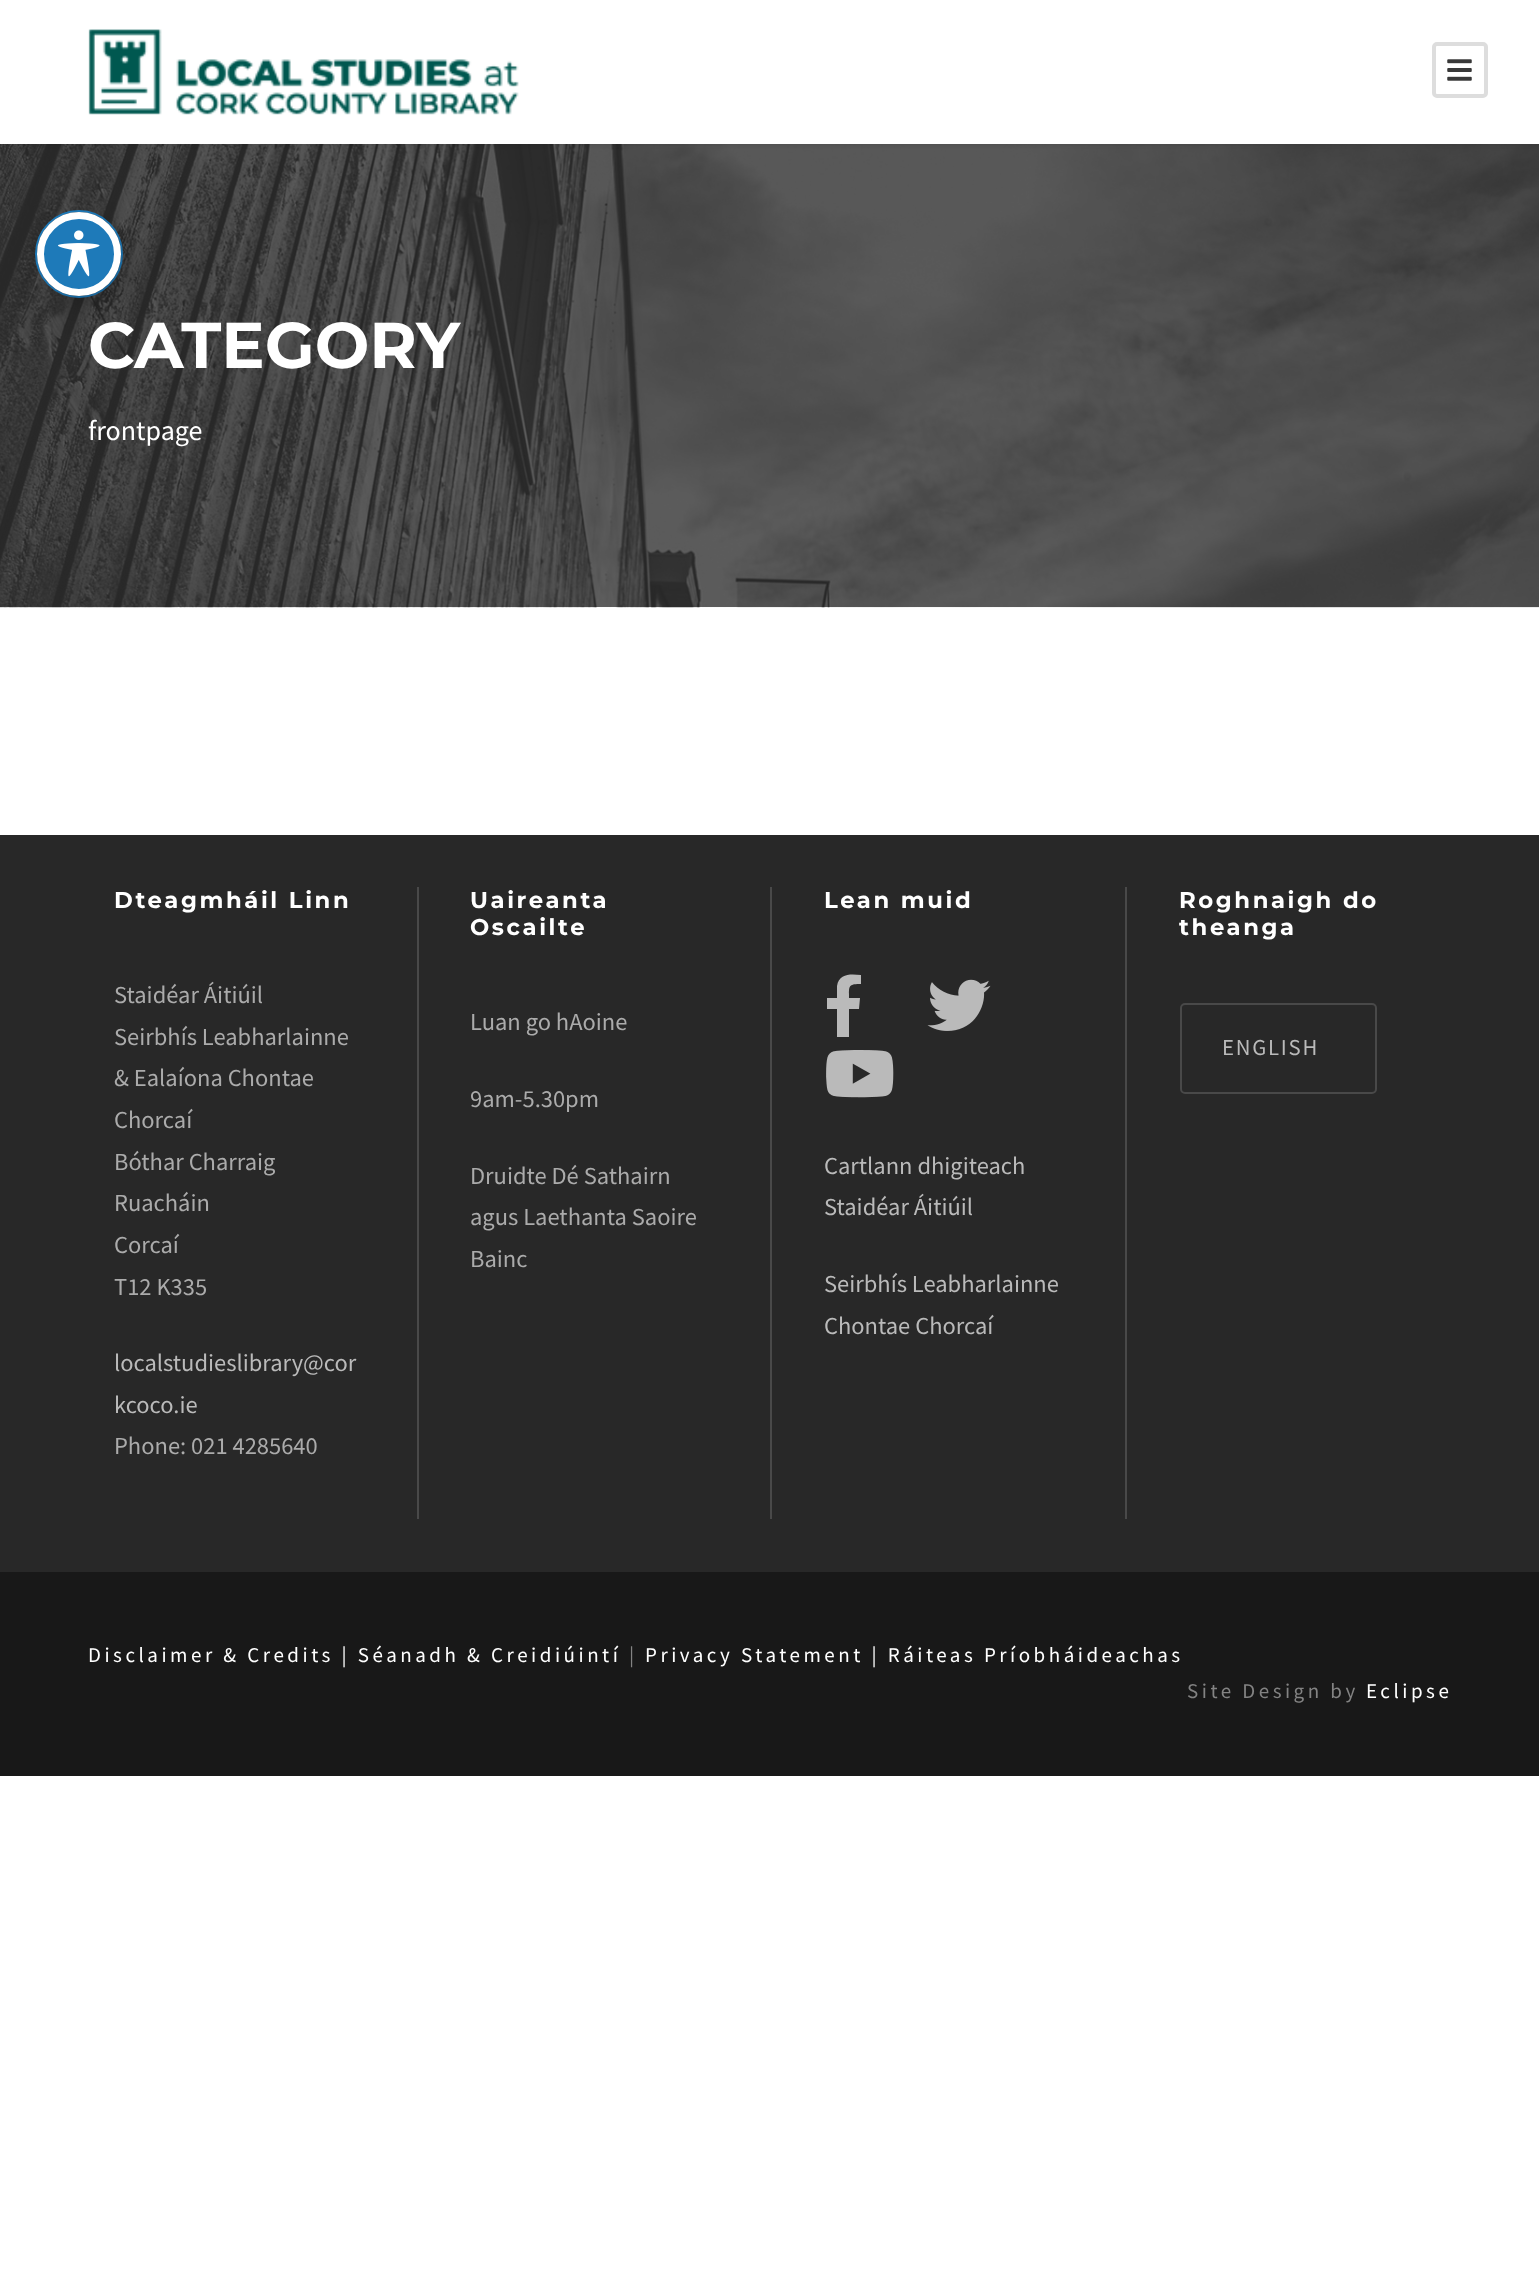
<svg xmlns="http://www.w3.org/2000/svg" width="1539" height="2291">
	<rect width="100%" height="100%" fill="#FFFFFF" />
	<image x="0" y="144" width="1539" height="464" href="assets/img4.png" />
	<rect x="0" y="2" width="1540" height="143" fill="#000000" fill-opacity="0.1" filter="blur(2px)" />
	<rect x="0" y="0" width="1539" height="144" fill="#FFFFFF" />
	<image x="88" y="29" width="431" height="86" href="assets/img1.png" />
	<rect x="1434" y="44" width="52" height="52" rx="3" fill="none" stroke="#DDDDDD" stroke-width="4" />
	<image x="1447" y="59" width="25" height="22" href="assets/img2.png" />
	<circle cx="79" cy="254" r="43" fill="none" stroke="#1E7AB9" stroke-width="2" />
	<rect x="47" y="226" width="84" height="84" rx="42" fill="#000000" fill-opacity="0.2" filter="blur(14px)" />
	<circle cx="79" cy="254" r="38.5" fill="#1E7AB9" stroke="#FFFFFF" stroke-width="7" />
	<image x="58" y="230" width="42" height="47" href="assets/img3.png" />
	<text x="88" y="368" font-family="Montserrat" font-size="64.75" font-weight="700" fill="#FFFFFF">CATEGORY</text>
	<text x="88" y="440" font-family="Source Sans Pro" font-size="28" fill="#FFFFFF">frontpage</text>
	<rect x="0" y="835" width="1539" height="737" fill="#282828" />
	<text x="114" y="908" font-family="Montserrat" font-size="22.75" font-weight="700" letter-spacing="2.6" fill="#FFFFFF">Dteagmháil Linn</text>
	<g font-family="Source Sans Pro" font-size="24.5" fill="#ABABAB">
		<text x="114" y="1003">Staidéar Áitiúil</text>
		<text x="114" y="1045">Seirbhís Leabharlainne</text>
		<text x="114" y="1086">&amp; Ealaíona Chontae</text>
		<text x="114" y="1128">Chorcaí</text>
		<text x="114" y="1170">Bóthar Charraig</text>
		<text x="114" y="1211">Ruacháin</text>
		<text x="114" y="1253">Corcaí</text>
		<text x="114" y="1295">T12 K335</text>
	</g>
	<g font-family="Source Sans Pro" font-size="24.5" fill="#BABABA">
		<text x="114" y="1371">localstudieslibrary@cor</text>
		<text x="114" y="1413">kcoco.ie</text>
	</g>
	<text x="114" y="1454" font-family="Source Sans Pro" font-size="24.5" fill="#ABABAB">Phone: 021 4285640</text>
	<rect x="417" y="887" width="2" height="632" fill="#494949" />
	<g font-family="Montserrat" font-size="22.75" font-weight="700" letter-spacing="2.6" fill="#FFFFFF">
		<text x="470" y="908">Uaireanta</text>
		<text x="470" y="935">Oscailte</text>
	</g>
	<g font-family="Source Sans Pro" font-size="24.5" fill="#ABABAB">
		<text x="470" y="1030">Luan go hAoine</text>
		<text x="470" y="1107">9am-5.30pm</text>
		<text x="470" y="1184">Druidte Dé Sathairn</text>
		<text x="470" y="1225">agus Laethanta Saoire</text>
		<text x="470" y="1267">Bainc</text>
	</g>
	<rect x="770" y="887" width="2" height="632" fill="#494949" />
	<text x="824" y="908" font-family="Montserrat" font-size="22.75" font-weight="700" letter-spacing="2.6" fill="#FFFFFF">Lean muid</text>
	<path d="M859 1009H849V1037H837V1009H827V998H837V986C839 973 851 974 861 975V984C848 984 849 986 849 998H860Z" fill="#BABABA" />
	<image x="927" y="979" width="64" height="52" href="assets/img5.png" />
	<image x="826" y="1050" width="68" height="48" href="assets/img6.png" />
	<g font-family="Source Sans Pro" font-size="24.5" fill="#BABABA">
		<text x="824" y="1174">Cartlann dhigiteach</text>
		<text x="824" y="1215">Staidéar Áitiúil</text>
		<text x="824" y="1292">Seirbhís Leabharlainne</text>
		<text x="824" y="1334">Chontae Chorcaí</text>
	</g>
	<rect x="1125" y="887" width="2" height="632" fill="#494949" />
	<g font-family="Montserrat" font-size="22.75" font-weight="700" letter-spacing="2.6" fill="#FFFFFF">
		<text x="1179" y="908">Roghnaigh do</text>
		<text x="1179" y="935">theanga</text>
	</g>
	<rect x="1181" y="1004" width="195" height="89" rx="4" fill="none" stroke="#494949" stroke-width="2" />
	<text x="1222" y="1055" font-family="Source Sans Pro" font-size="22.75" letter-spacing="1.75" fill="#BABABA">ENGLISH</text>
	<rect x="0" y="1572" width="1539" height="204" fill="#181818" />
	<text x="88" y="1662" font-family="Source Sans Pro" font-size="21" letter-spacing="3.5" fill="#FFFFFF">Disclaimer &amp; Credits | Séanadh &amp; Creidiúintí</text>
	<text x="629" y="1662" font-family="Source Sans Pro" font-size="21" letter-spacing="3.5" fill="#838383">|</text>
	<text x="645" y="1662" font-family="Source Sans Pro" font-size="21" letter-spacing="3.5" fill="#FFFFFF">Privacy Statement | Ráiteas Príobháideachas</text>
	<text x="1187" y="1698" font-family="Source Sans Pro" font-size="21" letter-spacing="3.5" fill="#838383">Site Design by</text>
	<text x="1366" y="1698" font-family="Source Sans Pro" font-size="21" letter-spacing="3.5" fill="#FFFFFF">Eclipse</text>
</svg>
